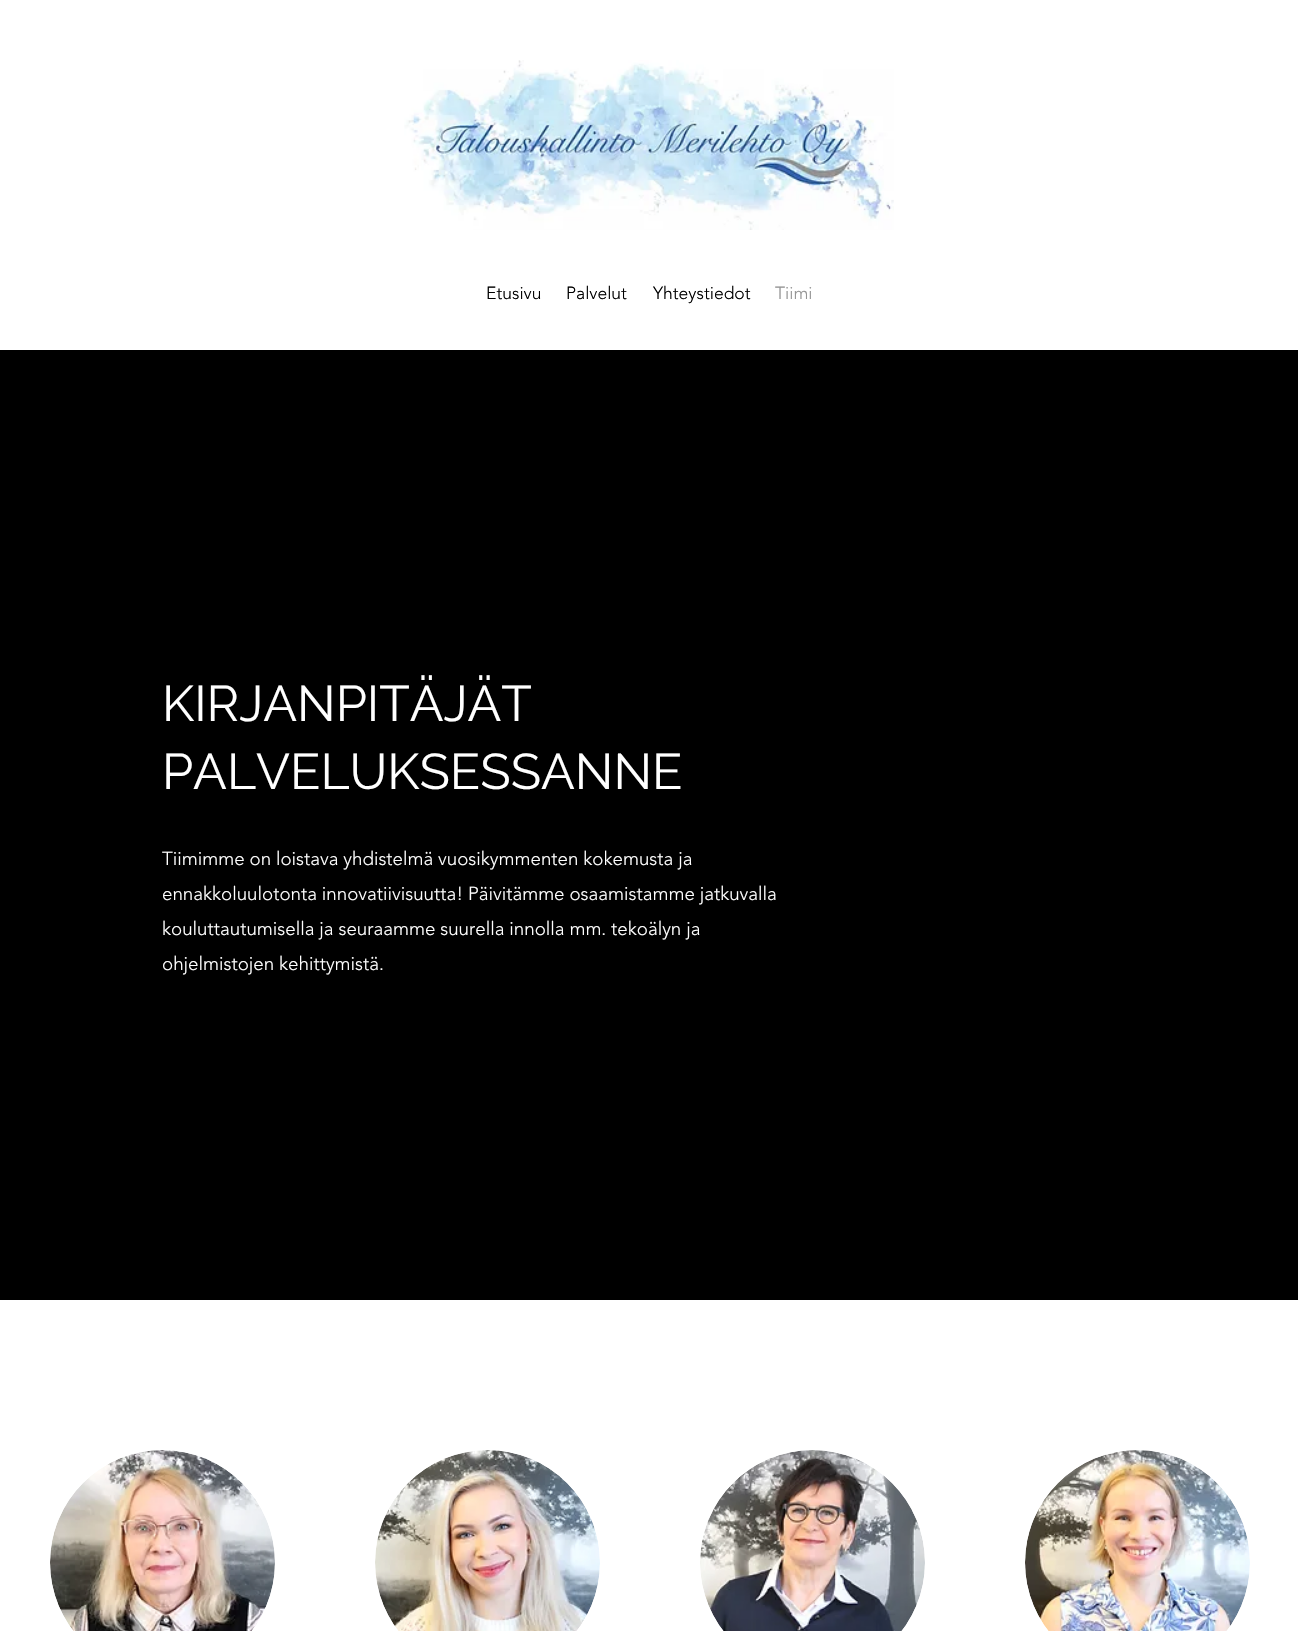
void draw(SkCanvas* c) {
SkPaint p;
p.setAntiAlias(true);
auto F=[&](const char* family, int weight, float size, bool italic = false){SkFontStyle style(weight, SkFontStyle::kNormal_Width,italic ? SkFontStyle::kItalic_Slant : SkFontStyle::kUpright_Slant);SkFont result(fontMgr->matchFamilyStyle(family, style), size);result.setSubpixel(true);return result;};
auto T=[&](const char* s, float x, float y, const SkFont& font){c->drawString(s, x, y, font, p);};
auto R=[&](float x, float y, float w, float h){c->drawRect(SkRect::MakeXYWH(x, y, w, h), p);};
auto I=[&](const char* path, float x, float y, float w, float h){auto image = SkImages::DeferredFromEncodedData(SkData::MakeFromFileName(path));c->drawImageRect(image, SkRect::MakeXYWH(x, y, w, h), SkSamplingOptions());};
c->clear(0xffffffff);
I("1.png",404,60,490,170);
auto f1 = F("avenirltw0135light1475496",300,17.5);
p.setColor(0xff000000);
T("Etusivu",486,299,f1);
T("Palvelut",566,299,f1);
T("Yhteystiedot",653,299,f1);
p.setColor(0xff949494);
T("Tiimi",775,299,f1);
p.setColor(0xff000000);
R(0,350,1298,950);
auto f2 = F("Raleway",400,50);
p.setColor(0xffffffff);
T("KIRJANPITÄJÄT",162,721,f2);
T("PALVELUKSESSANNE",162,789,f2);
auto f3 = F("avenirltw0135light1475496",300,18.75);
T("Tiimimme on loistava yhdistelmä vuosikymmenten kokemusta ja",162,865,f3);
T("ennakkoluulotonta innovatiivisuutta! Päivitämme osaamistamme jatkuvalla",162,900,f3);
T("kouluttautumisella ja seuraamme suurella innolla mm. tekoälyn ja",162,935,f3);
T("ohjelmistojen kehittymistä.",162,970,f3);
I("2.png",50,1450,225,181);
I("3.png",375,1450,225,181);
I("4.png",700,1450,225,181);
I("5.png",1025,1450,225,181);
}
